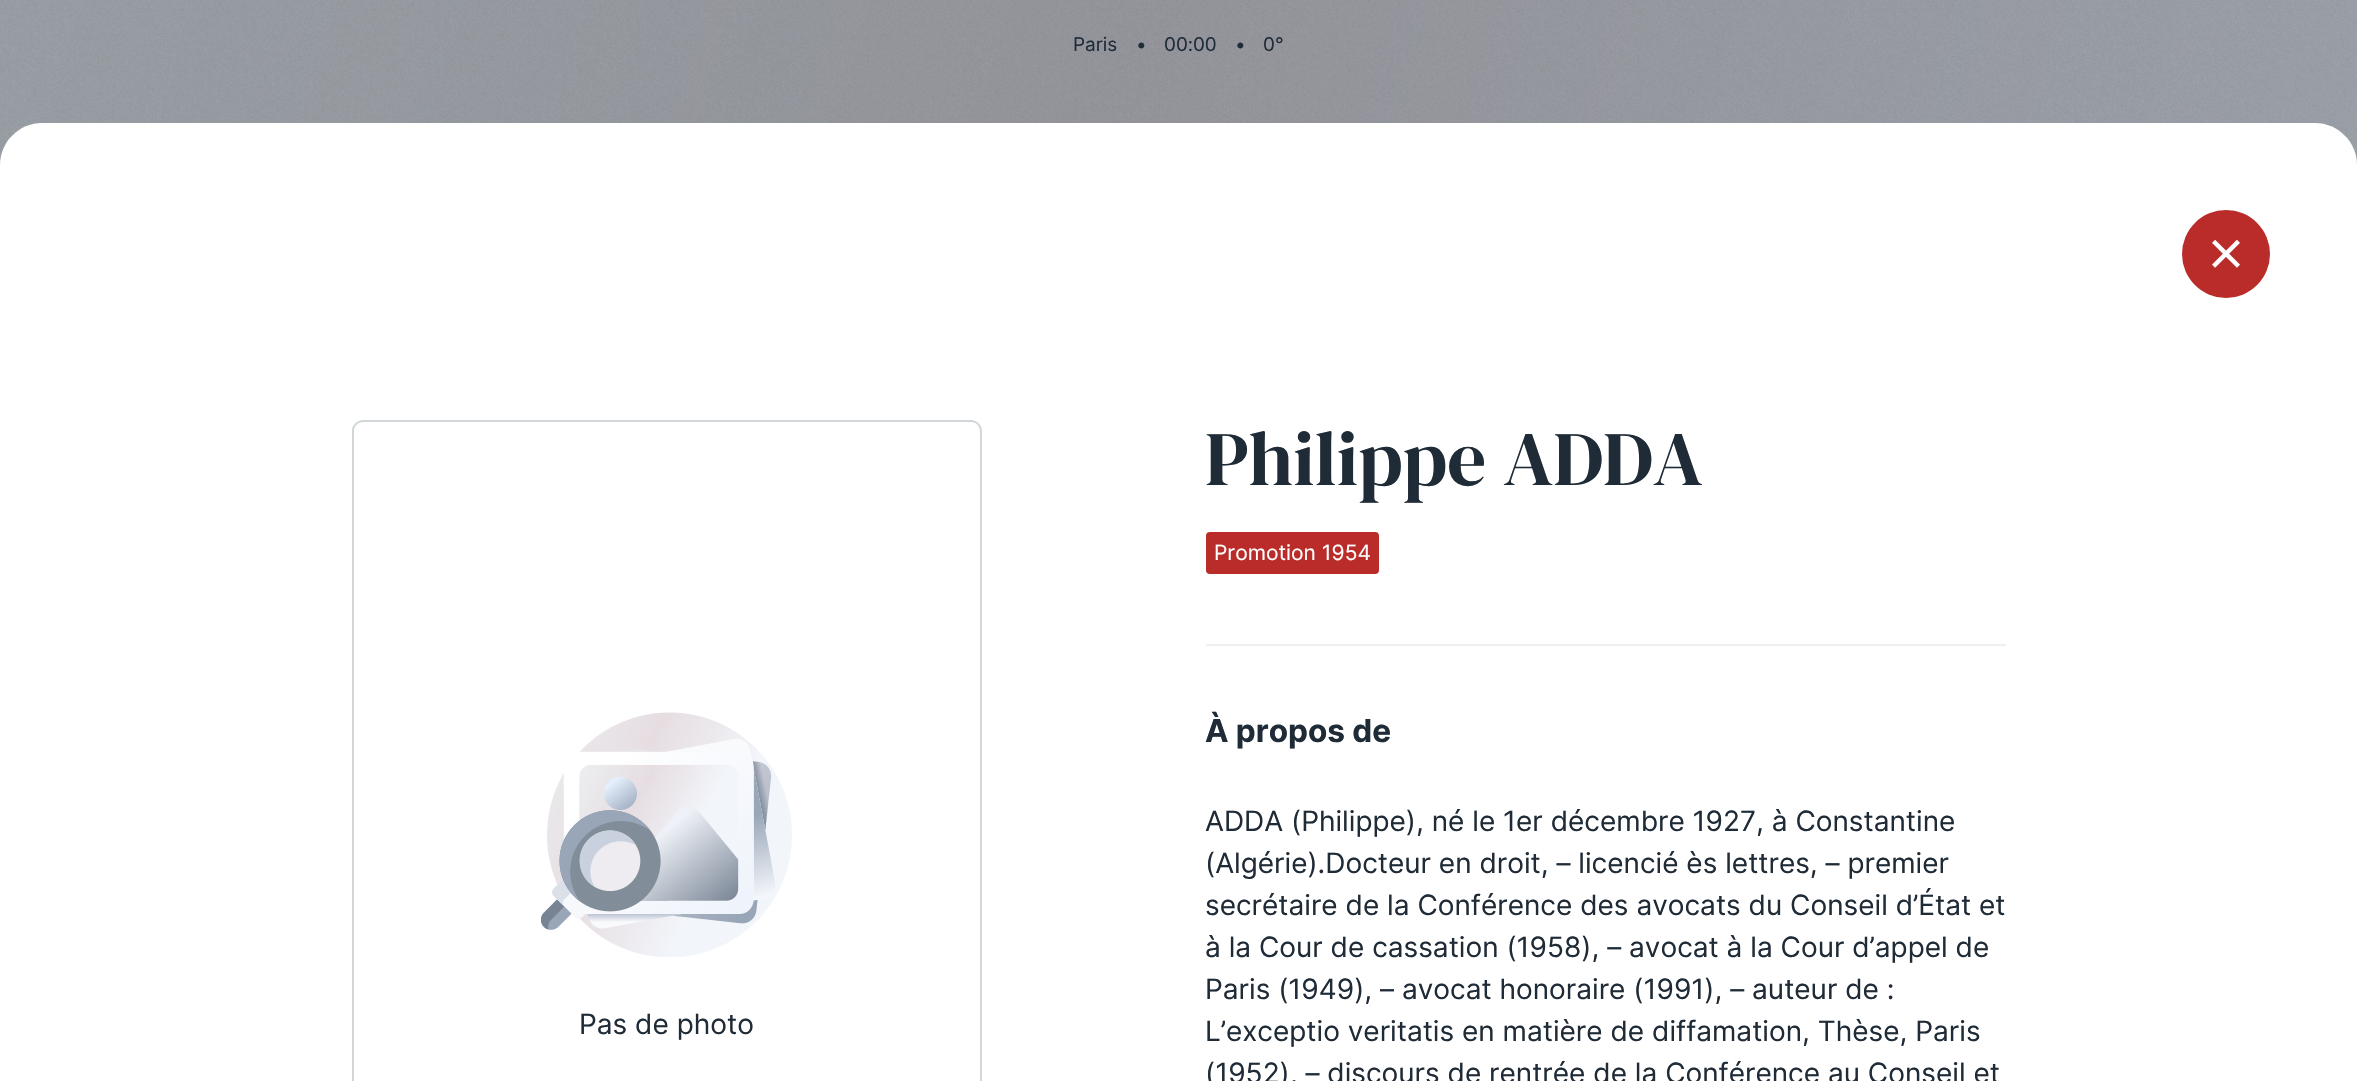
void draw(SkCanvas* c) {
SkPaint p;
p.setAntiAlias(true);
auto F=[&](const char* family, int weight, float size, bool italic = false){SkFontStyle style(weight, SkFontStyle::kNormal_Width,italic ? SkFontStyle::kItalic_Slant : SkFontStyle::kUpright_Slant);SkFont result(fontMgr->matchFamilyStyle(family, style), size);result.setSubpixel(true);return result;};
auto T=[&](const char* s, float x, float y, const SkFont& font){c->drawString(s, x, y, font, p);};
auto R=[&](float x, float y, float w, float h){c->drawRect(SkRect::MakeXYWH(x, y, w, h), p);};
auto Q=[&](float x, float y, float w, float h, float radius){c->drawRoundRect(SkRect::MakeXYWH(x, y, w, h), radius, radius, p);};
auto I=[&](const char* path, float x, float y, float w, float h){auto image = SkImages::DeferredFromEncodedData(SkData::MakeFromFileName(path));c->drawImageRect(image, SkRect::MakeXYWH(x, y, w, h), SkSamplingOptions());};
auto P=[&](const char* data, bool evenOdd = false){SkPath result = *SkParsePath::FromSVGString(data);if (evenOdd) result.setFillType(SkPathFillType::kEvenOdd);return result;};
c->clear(0xffffffff);
{
const SkColor colors[] = {0xff9ea4ac,0xff96969d,0xff9aa0a6};
const float stops[] = {.01,.57,.99};
const SkPoint ends[] = {{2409,907}, {-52,174}};
p.setShader(SkGradientShader::MakeLinear(ends, colors, stops, 3, SkTileMode::kClamp));
p.setAlpha(255);
}
R(0,0,2357,165);
I("1.png",0,0,2357,165);
auto f1 = F("Inter",400,19);
p.setShader(nullptr);
p.setColor(0xff1f2b36);
T("Paris",1073,51,f1);
T("•",1136,51,f1);
T("00:00",1164,51,f1);
T("•",1235,51,f1);
T("0°",1263,51,f1);
p.setColor(0xffffffff);
c->drawPath(P("M42 123h2273c23 0 42 19 42 42v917h-2357v-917c0-23 19-42 42-42z"),p);
p.setColor(0xffb92c2a);
c->drawCircle(2226,254,44,p);
I("2.png",2212,239,28,29);
p.setColor(0xffd0d6d9);
c->drawPath(P("M363 420c-6 0-11 5-11 11v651h2v-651c0-5 4-9 9-9h608c5 0 9 4 9 9v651h2v-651c0-6-5-11-11-11z"),p);
I("3.png",541,712,251,245);
auto f2 = F("Inter",400,28);
p.setColor(0xff1f2b36);
T("Pas de photo",579,1034,f2);
auto f3 = F("DM Serif Display",400,77);
T("Philippe ADDA",1205,485,f3);
p.setColor(0xffb92c2a);
Q(1206,532,173,42,4);
auto f4 = F("Inter",400,21);
p.setColor(0xffffffff);
T("Promotion 1954",1214,560,f4);
p.setColor(0xffeff0f1);
R(1206,644,800,2);
auto f5 = F("Inter",700,31.5);
p.setColor(0xff1f2b36);
T("À propos de",1205,742,f5);
T("ADDA (Philippe), né le 1er décembre 1927, à Constantine",1205,831,f2);
T("(Algérie).Docteur en droit, – licencié ès lettres, – premier",1205,873,f2);
T("secrétaire de la Conférence des avocats du Conseil d’État et",1205,915,f2);
T("à la Cour de cassation (1958), – avocat à la Cour d’appel de",1205,957,f2);
T("Paris (1949), – avocat honoraire (1991), – auteur de :",1205,999,f2);
T("L’exceptio veritatis en matière de diffamation, Thèse, Paris",1205,1041,f2);
T("(1952), – discours de rentrée de la Conférence au Conseil et",1205,1083,f2);
}
